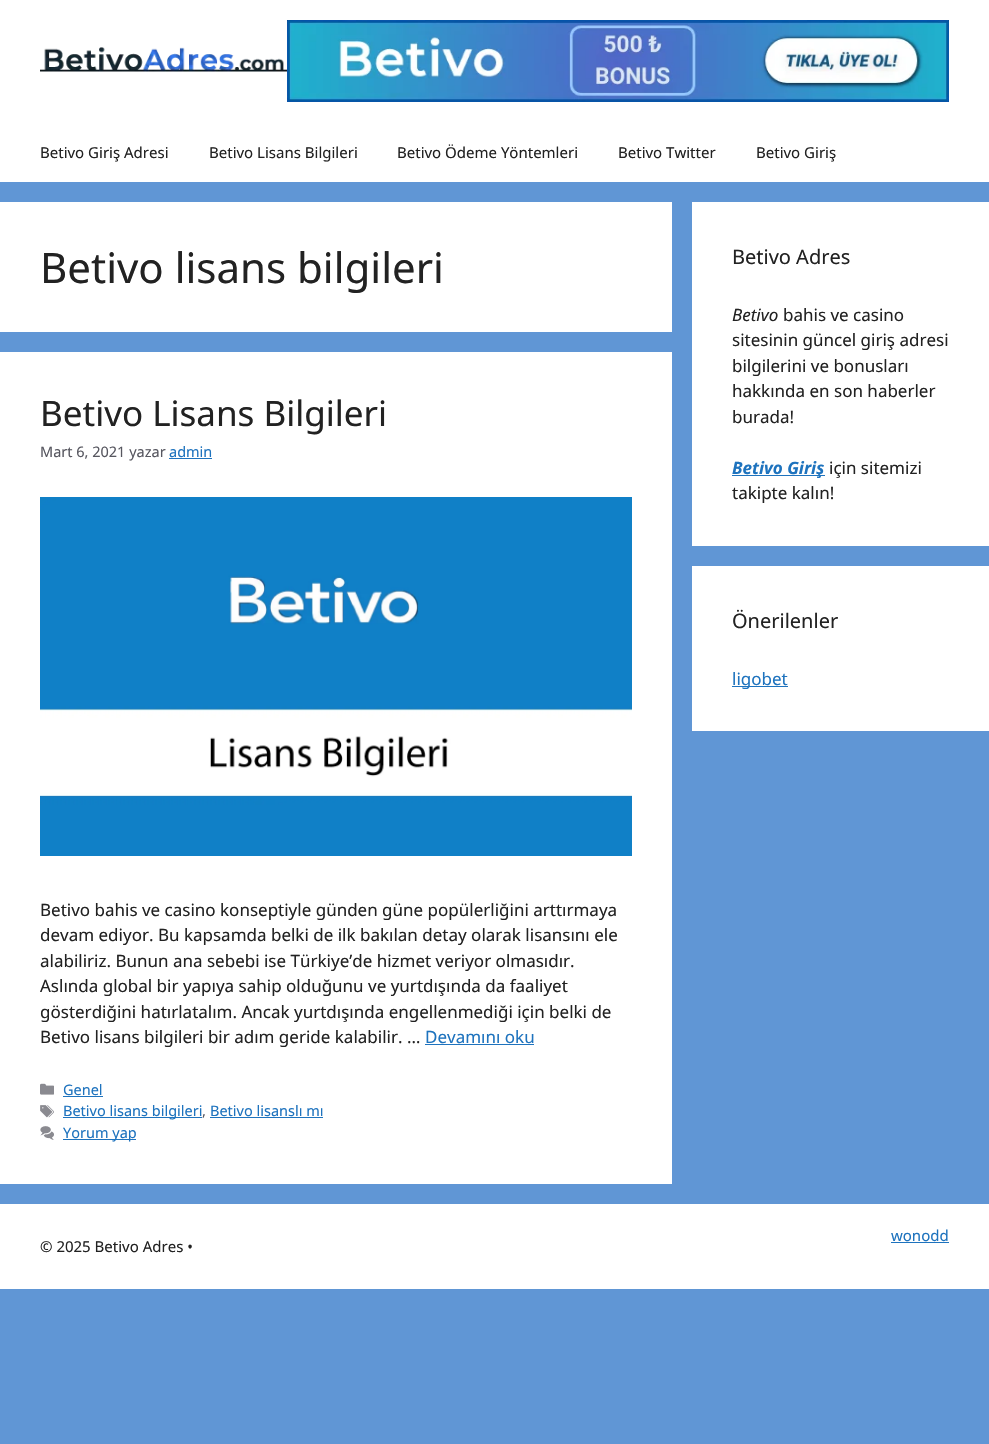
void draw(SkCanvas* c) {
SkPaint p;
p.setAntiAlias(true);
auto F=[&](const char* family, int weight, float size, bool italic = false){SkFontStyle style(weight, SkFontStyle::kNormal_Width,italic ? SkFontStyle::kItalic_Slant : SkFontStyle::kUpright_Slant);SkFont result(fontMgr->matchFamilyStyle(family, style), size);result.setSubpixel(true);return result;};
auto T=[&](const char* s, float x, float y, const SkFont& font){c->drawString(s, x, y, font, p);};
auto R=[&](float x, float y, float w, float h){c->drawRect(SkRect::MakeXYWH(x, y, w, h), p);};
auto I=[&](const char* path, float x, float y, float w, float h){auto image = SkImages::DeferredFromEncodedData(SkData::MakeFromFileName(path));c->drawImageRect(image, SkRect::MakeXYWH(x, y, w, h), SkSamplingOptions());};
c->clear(0xff6096d5);
p.setColor(0xffffffff);
R(0,0,989,182);
I("1.png",40,47,247,25);
I("2.png",287,20,662,82);
auto f1 = F("Noto Sans",400,15);
p.setColor(0xff222222);
T("Betivo Giriş Adresi",40,158,f1);
T("Betivo Lisans Bilgileri",209,158,f1);
T("Betivo Ödeme Yöntemleri",397,158,f1);
T("Betivo Twitter",618,158,f1);
T("Betivo Giriş",756,158,f1);
p.setColor(0xffffffff);
R(0,202,672,130);
auto f2 = F("Noto Sans",400,42);
p.setColor(0xff222222);
T("Betivo lisans bilgileri",40,283,f2);
p.setColor(0xffffffff);
R(0,352,672,832);
auto f3 = F("Noto Sans",400,35);
p.setColor(0xff222222);
T("Betivo Lisans Bilgileri",40,426,f3);
auto f4 = F("Noto Sans",400,14.5);
p.setColor(0xff575760);
T("Mart 6, 2021 yazar",40,457,f4);
p.setColor(0xff1e73be);
T("admin",169,457,f4);
R(169,458,43,1);
I("3.png",40,497,592,359);
auto f5 = F("Noto Sans",400,17);
p.setColor(0xff222222);
T("Betivo bahis ve casino konseptiyle günden güne popülerliğini arttırmaya",40,916,f5);
T("devam ediyor. Bu kapsamda belki de ilk bakılan detay olarak lisansını ele",40,941,f5);
T("alabiliriz. Bunun ana sebebi ise Türkiye’de hizmet veriyor olmasıdır.",40,967,f5);
T("Aslında global bir yapıya sahip olduğunu ve yurtdışında da faaliyet",40,992,f5);
T("gösterdiğini hatırlatalım. Ancak yurtdışında engellenmediği için belki de",40,1018,f5);
T("Betivo lisans bilgileri bir adım geride kalabilir. …",40,1043,f5);
p.setColor(0xff1e73be);
T("Devamını oku",425,1043,f5);
R(425,1044,109,1);
I("4.png",40,1083,14,12);
T("Genel",63,1095,f4);
R(63,1096,40,1);
I("5.png",40,1105,14,13);
R(63,1117,139,1);
T("Betivo lisans bilgileri",63,1116,f4);
p.setColor(0xff575760);
T(",",202,1116,f4);
p.setColor(0xff1e73be);
T("Betivo lisanslı mı",210,1116,f4);
R(210,1117,113,1);
I("6.png",40,1126,14,14);
R(63,1139,73,1);
T("Yorum yap",63,1138,f4);
p.setColor(0xffffffff);
R(692,202,297,344);
auto f6 = F("Noto Sans",400,20);
p.setColor(0xff222222);
T("Betivo Adres",732,264,f6);
auto f7 = F("Noto Sans",400,17,true);
T("Betivo",732,321,f7);
T("bahis ve casino",783,321,f5);
T("sitesinin güncel giriş adresi",732,346,f5);
T("bilgilerini ve bonusları",732,372,f5);
T("hakkında en son haberler",732,397,f5);
T("burada!",732,423,f5);
p.setColor(0xff1e73be);
R(732,475,93,1);
auto f8 = F("Noto Sans",700,17,true);
T("Betivo Giriş",732,474,f8);
p.setColor(0xff222222);
T("için sitemizi",829,474,f5);
T("takipte kalın!",732,499,f5);
p.setColor(0xffffffff);
R(692,566,297,165);
p.setColor(0xff222222);
T("Önerilenler",732,628,f6);
p.setColor(0xff1e73be);
R(732,686,56,1);
T("ligobet",732,685,f5);
p.setColor(0xffffffff);
R(0,1204,989,85);
p.setColor(0xff1e73be);
T("wonodd",891,1241,f1);
R(891,1242,58,1);
p.setColor(0xff222222);
T("© 2025 Betivo Adres •",40,1252,f1);
}
